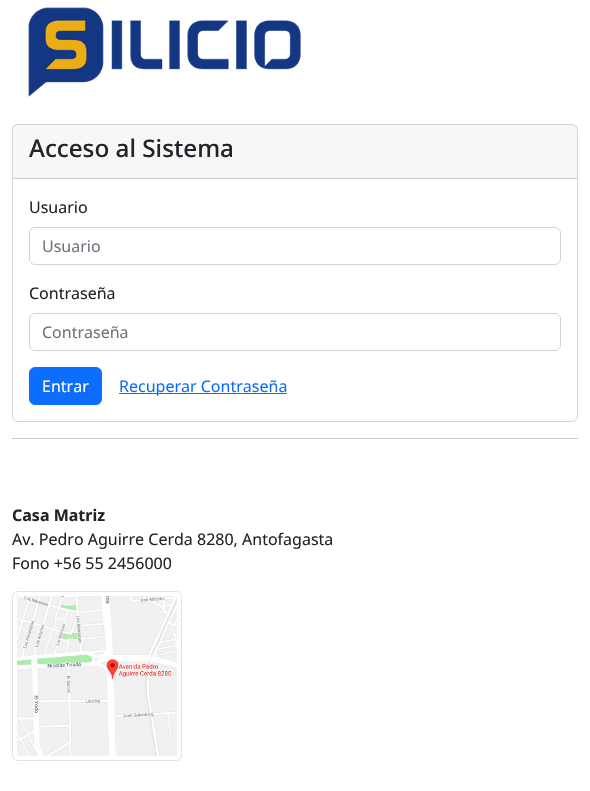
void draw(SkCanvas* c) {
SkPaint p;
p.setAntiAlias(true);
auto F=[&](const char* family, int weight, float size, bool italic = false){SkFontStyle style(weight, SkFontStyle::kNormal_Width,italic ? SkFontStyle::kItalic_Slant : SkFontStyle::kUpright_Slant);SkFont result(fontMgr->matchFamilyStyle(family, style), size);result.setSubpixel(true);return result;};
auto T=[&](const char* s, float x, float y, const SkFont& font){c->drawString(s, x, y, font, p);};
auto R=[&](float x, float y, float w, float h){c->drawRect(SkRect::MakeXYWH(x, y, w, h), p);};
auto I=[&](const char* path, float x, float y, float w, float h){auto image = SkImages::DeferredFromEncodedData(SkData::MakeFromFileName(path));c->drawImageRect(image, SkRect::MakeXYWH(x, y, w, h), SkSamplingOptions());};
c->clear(0xffffffff);
I("1.png",28,7,273,90);
p.setStroke(true);
p.setStrokeWidth(1);
p.setColor(0xffd2d2d2);
c->drawRoundRect(SkRect::MakeXYWH(12.5,124.5,565,297),5.5,5.5,p);
p.setStroke(false);
p.setColor(0x08000000);
R(13,125,564,53);
p.setColor(0xffcccccc);
R(13,178,564,1);
auto f1 = F("Noto Sans",500,24.25);
p.setColor(0xff212529);
T("Acceso al Sistema",29,157,f1);
auto f2 = F("Noto Sans",400,16);
T("Usuario",29,213,f2);
p.setStroke(true);
p.setColor(0xffced4da);
c->drawRoundRect(SkRect::MakeXYWH(29.5,227.5,531,37),5.5,5.5,p);
p.setStroke(false);
p.setColor(0xff6c757d);
T("Usuario",42,252,f2);
p.setColor(0xff212529);
T("Contraseña",29,299,f2);
p.setStroke(true);
p.setColor(0xffced4da);
c->drawRoundRect(SkRect::MakeXYWH(29.5,313.5,531,37),5.5,5.5,p);
p.setStroke(false);
p.setColor(0xff6c757d);
T("Contraseña",42,338,f2);
p.setColor(0xff0d6efd);
c->drawRoundRect(SkRect::MakeXYWH(29.5,367.5,72,37),5.5,5.5,p);
p.setStroke(true);
c->drawRoundRect(SkRect::MakeXYWH(29.5,367.5,72,37),5.5,5.5,p);
p.setStroke(false);
p.setColor(0xffffffff);
T("Entrar",42,392,f2);
p.setColor(0xff0d6efd);
R(119,393,168,1);
T("Recuperar Contraseña",119,392,f2);
p.setColor(0xffc8c9ca);
R(12,438,566,1);
auto f3 = F("Noto Sans",700,16);
p.setColor(0xff212529);
T("Casa Matriz",12,521,f3);
T("Av. Pedro Aguirre Cerda 8280, Antofagasta",12,545,f2);
T("Fono +56 55 2456000",12,569,f2);
p.setStroke(true);
p.setColor(0xffdee2e6);
c->drawRoundRect(SkRect::MakeXYWH(12.5,591.5,169,169),5.5,5.5,p);
I("2.png",17,596,160,160);
}
